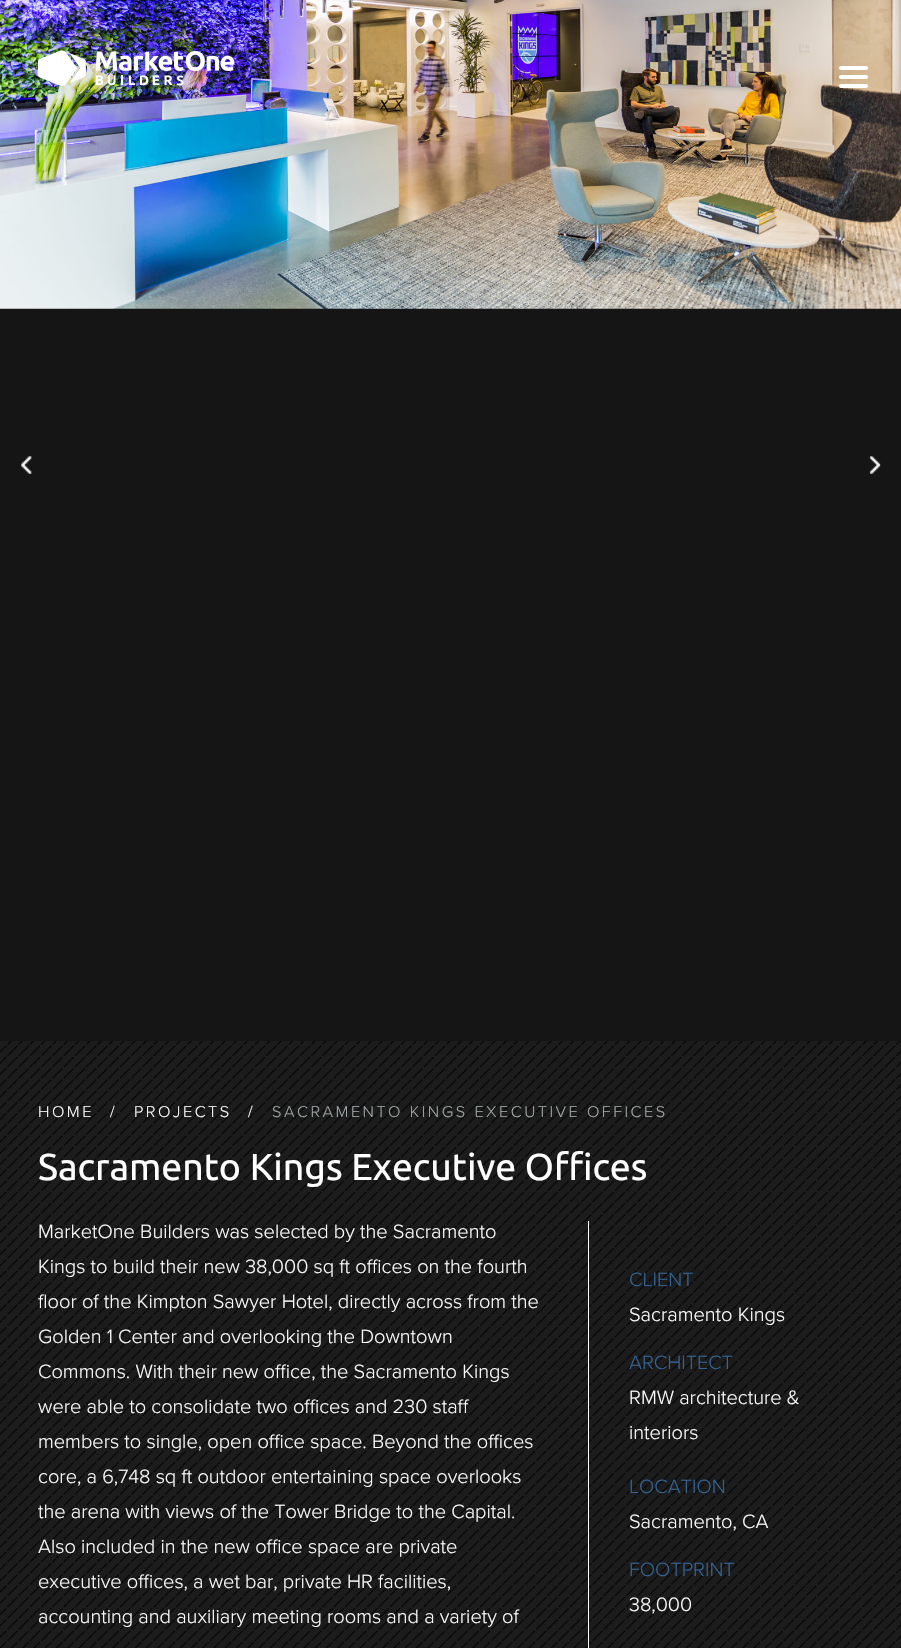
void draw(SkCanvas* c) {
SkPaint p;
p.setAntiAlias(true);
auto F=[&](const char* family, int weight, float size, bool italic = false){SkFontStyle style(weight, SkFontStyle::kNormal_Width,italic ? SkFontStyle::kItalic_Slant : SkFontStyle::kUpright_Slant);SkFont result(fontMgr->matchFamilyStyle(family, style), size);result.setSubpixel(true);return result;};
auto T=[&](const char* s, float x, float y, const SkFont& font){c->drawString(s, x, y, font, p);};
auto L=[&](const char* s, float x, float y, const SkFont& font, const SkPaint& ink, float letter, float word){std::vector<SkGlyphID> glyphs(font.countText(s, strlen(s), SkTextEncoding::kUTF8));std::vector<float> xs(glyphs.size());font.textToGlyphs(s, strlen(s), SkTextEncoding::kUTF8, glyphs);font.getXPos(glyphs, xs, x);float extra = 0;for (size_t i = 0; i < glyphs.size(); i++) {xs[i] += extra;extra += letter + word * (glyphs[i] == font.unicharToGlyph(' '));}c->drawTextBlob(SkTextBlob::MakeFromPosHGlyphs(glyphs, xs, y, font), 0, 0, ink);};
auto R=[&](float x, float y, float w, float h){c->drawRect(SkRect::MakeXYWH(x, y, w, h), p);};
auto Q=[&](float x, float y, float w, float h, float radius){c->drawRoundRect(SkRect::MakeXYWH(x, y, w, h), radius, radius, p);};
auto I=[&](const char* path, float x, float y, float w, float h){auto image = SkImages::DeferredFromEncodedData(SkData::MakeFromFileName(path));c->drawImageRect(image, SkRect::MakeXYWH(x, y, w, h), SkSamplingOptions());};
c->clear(0xffffffff);
I("1.png",0,1041,901,607);
p.setColor(0xff151515);
R(0,308,901,733);
I("3.png",0,0,901,309);
I("2.png",38,50,197,36);
p.setColor(0xffffffff);
Q(839,66,29,4,2);
Q(839,75,29,4,2);
Q(839,84,29,4,2);
I("4.png",21,456,11,18);
I("5.png",869,456,12,18);
auto f1 = F("Proxima Nova",300,16.25);
L("HOME",38,1117,f1,p,2.5,0);
L("/",110,1117,f1,p,2.5,0);
L("PROJECTS",134,1117,f1,p,2.5,0);
L("/",248,1117,f1,p,2.5,0);
p.setColor(0xffa5abad);
L("SACRAMENTO KINGS EXECUTIVE OFFICES",272,1117,f1,p,2.5,0);
auto f2 = F("Ubuntu",400,37.5);
p.setColor(0xffffffff);
T("Sacramento Kings Executive Offices",38,1180,f2);
auto f3 = F("Proxima Nova",300,20);
T("MarketOne Builders was selected by the Sacramento",38,1238,f3);
T("Kings to build their new 38,000 sq ft offices on the fourth",38,1273,f3);
T("floor of the Kimpton Sawyer Hotel, directly across from the",38,1308,f3);
T("Golden 1 Center and overlooking the Downtown",38,1343,f3);
T("Commons. With their new office, the Sacramento Kings",38,1378,f3);
T("were able to consolidate two offices and 230 staff",38,1413,f3);
T("members to single, open office space. Beyond the offices",38,1448,f3);
T("core, a 6,748 sq ft outdoor entertaining space overlooks",38,1483,f3);
T("the arena with views of the Tower Bridge to the Capital.",38,1518,f3);
T("Also included in the new office space are private",38,1553,f3);
T("executive offices, a wet bar, private HR facilities,",38,1588,f3);
T("accounting and auxiliary meeting rooms and a variety of",38,1623,f3);
R(588,1221,1,427);
p.setColor(0xff346496);
T("CLIENT",629,1286,f3);
p.setColor(0xffffffff);
T("Sacramento Kings",629,1321,f3);
p.setColor(0xff346496);
T("ARCHITECT",629,1369,f3);
p.setColor(0xffffffff);
T("RMW architecture &",629,1404,f3);
T("interiors",629,1439,f3);
p.setColor(0xff346496);
T("LOCATION",629,1493,f3);
p.setColor(0xffffffff);
T("Sacramento, CA",629,1528,f3);
p.setColor(0xff346496);
T("FOOTPRINT",629,1576,f3);
p.setColor(0xffffffff);
T("38,000",629,1611,f3);
}
